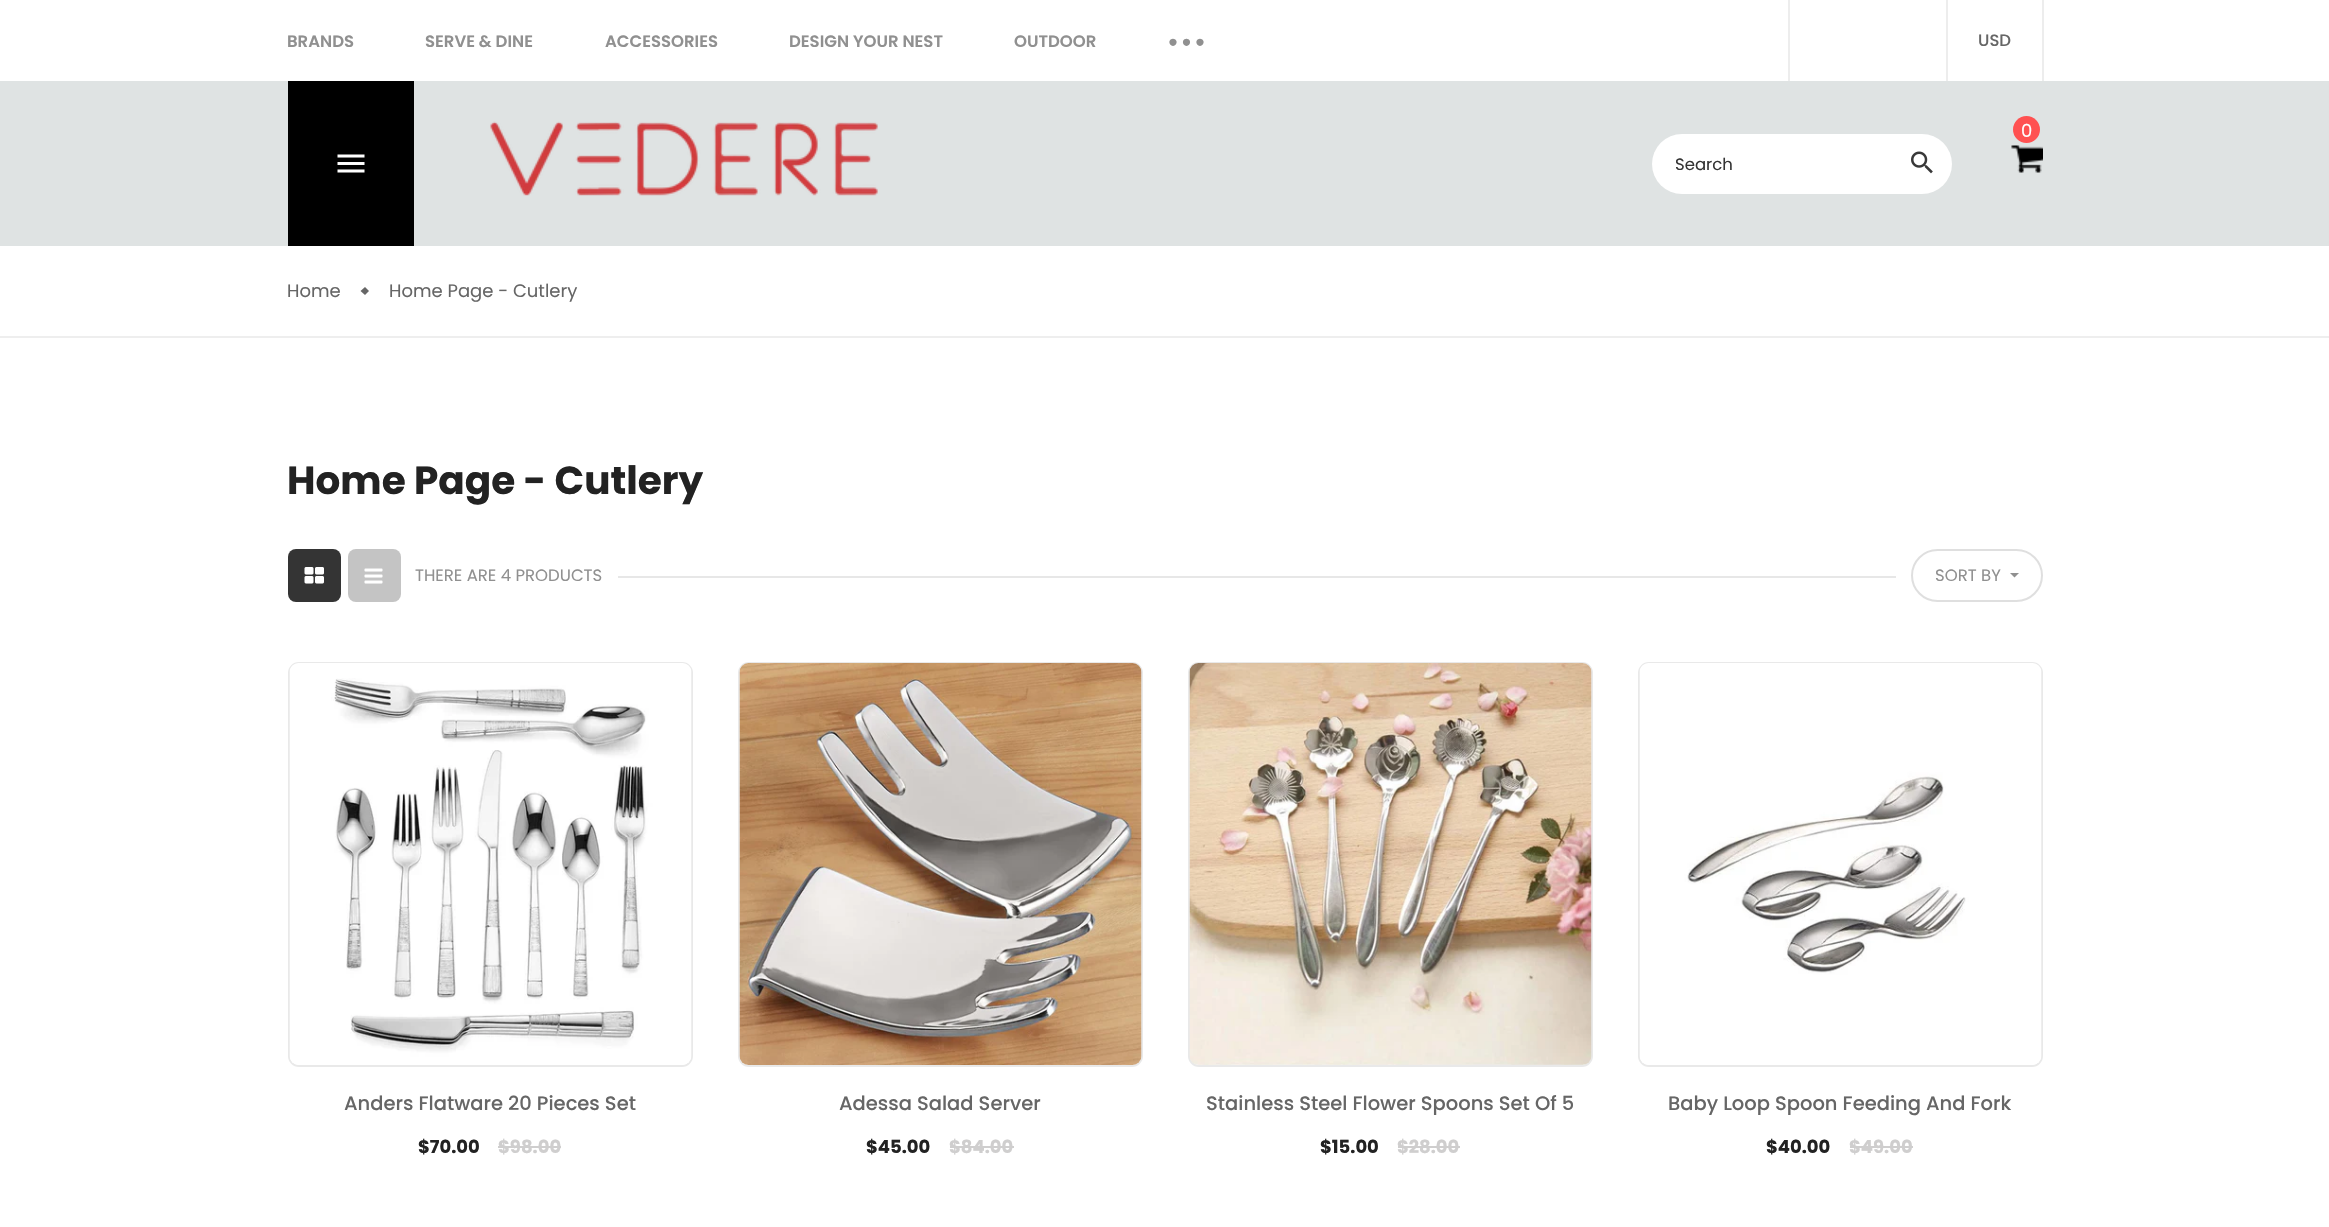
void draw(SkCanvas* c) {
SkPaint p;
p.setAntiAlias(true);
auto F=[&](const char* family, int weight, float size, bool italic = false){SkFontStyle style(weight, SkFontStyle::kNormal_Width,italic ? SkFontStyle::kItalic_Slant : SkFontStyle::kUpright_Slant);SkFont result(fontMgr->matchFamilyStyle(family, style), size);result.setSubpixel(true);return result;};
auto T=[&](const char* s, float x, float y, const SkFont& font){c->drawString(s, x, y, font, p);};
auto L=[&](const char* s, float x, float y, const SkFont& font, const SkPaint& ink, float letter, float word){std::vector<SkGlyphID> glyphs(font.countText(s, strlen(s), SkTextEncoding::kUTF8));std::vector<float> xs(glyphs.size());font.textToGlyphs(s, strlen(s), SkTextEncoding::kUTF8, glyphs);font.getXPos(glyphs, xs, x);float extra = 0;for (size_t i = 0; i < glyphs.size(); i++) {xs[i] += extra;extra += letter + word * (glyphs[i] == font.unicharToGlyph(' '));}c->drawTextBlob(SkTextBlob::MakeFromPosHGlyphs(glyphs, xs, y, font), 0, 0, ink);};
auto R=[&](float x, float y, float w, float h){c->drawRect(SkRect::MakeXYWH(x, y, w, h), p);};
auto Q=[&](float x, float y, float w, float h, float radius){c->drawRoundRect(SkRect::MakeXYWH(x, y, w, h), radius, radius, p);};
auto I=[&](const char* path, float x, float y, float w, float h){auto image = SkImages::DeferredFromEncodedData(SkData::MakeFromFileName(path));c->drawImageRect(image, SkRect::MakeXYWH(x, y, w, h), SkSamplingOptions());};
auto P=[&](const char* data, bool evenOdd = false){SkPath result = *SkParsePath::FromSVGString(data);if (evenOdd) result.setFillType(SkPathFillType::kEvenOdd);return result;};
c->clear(0xffffffff);
auto f1 = F("Poppins",600,16.5);
p.setColor(0xff909090);
T("BRANDS",287,47,f1);
T("SERVE & DINE",425,47,f1);
T("ACCESSORIES",605,47,f1);
T("DESIGN YOUR NEST",789,47,f1);
T("OUTDOOR",1014,47,f1);
auto f2 = F("Liberation Sans",700,16.5);
L("● ● ●",1168,47,f2,p,0,-1);
p.setColor(0xffededed);
R(1788,0,2,81);
R(2042,0,2,81);
R(1946,0,2,81);
auto f3 = F("Poppins",500,16.5);
p.setColor(0xff666666);
T("USD",1978,46,f3);
p.setColor(0xffdfe3e3);
R(0,81,2329,165);
p.setColor(0xff000000);
R(288,81,126,165);
I("1.png",337,154,28,19);
I("2.png",490,121,388,75);
p.setColor(0xffff5151);
c->drawCircle(2026.5,129.5,13.5,p);
auto f4 = F("Poppins",400,18);
p.setColor(0xffffffff);
T("0",2021,137,f4);
I("3.png",2011,145,32,28);
Q(1652,134,300,60,30);
c->save();
c->clipRect(SkRect::MakeXYWH(1676,152,201,25));
auto f5 = F("Poppins",400,16.5);
p.setColor(0xff343434);
T("Search",1675,170,f5);
c->restore();
I("4.png",1911,151,22,23);
p.setColor(0xffeeeeee);
R(0,336,2329,2);
p.setColor(0xff666666);
T("Home",287,297,f4);
c->drawPath(P("M365 287l4 4l-4 4l-4.5-4z"),p);
T("Home Page - Cutlery",389,297,f4);
auto f6 = F("Poppins",700,39);
p.setColor(0xff222222);
T("Home Page - Cutlery",287,494,f6);
p.setColor(0xff343434);
Q(288,549,53,53,8);
I("5.png",304,567,20,17);
p.setColor(0xffc4c4c4);
Q(348,549,53,53,8);
I("6.png",364,568,19,16);
p.setColor(0xff909090);
T("THERE ARE 4 PRODUCTS",415,581,f5);
p.setColor(0xffe7e7e7);
R(618,576,1278,2);
p.setStroke(true);
p.setStrokeWidth(2);
p.setColor(0xffdfdfdf);
c->drawRoundRect(SkRect::MakeXYWH(1912,550,130,51),25.5,25.5,p);
p.setStroke(false);
p.setColor(0xff909090);
T("SORT BY",1935,581,f5);
c->drawPath(P("M2010 573h9l-4.5 4.5z"),p);
p.setStroke(true);
p.setColor(0xffe9e9e9);
c->drawRoundRect(SkRect::MakeXYWH(289,663,403,403),10,10,p);
I("7.png",289,663,403,402);
auto f7 = F("Poppins",500,19.5);
p.setStroke(false);
p.setColor(0xff666666);
T("Anders Flatware 20 Pieces Set",344,1110,f7);
auto f8 = F("Poppins",700,18);
p.setColor(0xff222222);
T("$70.00",418,1153,f8);
p.setColor(0xffcfcece);
T("$98.00",498,1153,f8);
R(498,1146,63,2);
p.setStroke(true);
p.setColor(0xffe9e9e9);
c->drawRoundRect(SkRect::MakeXYWH(739,663,403,403),10,10,p);
I("8.png",739,663,403,402);
p.setStroke(false);
p.setColor(0xff666666);
T("Adessa Salad Server",839,1110,f7);
p.setColor(0xff222222);
T("$45.00",866,1153,f8);
p.setColor(0xffcfcece);
T("$84.00",949,1153,f8);
R(950,1146,64,2);
p.setStroke(true);
p.setColor(0xffe9e9e9);
c->drawRoundRect(SkRect::MakeXYWH(1189,663,403,403),10,10,p);
I("9.png",1189,663,403,402);
p.setStroke(false);
p.setColor(0xff666666);
T("Stainless Steel Flower Spoons Set Of 5",1206,1110,f7);
p.setColor(0xff222222);
T("$15.00",1320,1153,f8);
p.setColor(0xffcfcece);
T("$28.00",1397,1153,f8);
R(1398,1146,62,2);
p.setStroke(true);
p.setColor(0xffe9e9e9);
c->drawRoundRect(SkRect::MakeXYWH(1639,663,403,403),10,10,p);
I("10.png",1639,663,403,402);
p.setStroke(false);
p.setColor(0xff666666);
T("Baby Loop Spoon Feeding And Fork",1668,1110,f7);
p.setColor(0xff222222);
T("$40.00",1766,1153,f8);
p.setColor(0xffcfcece);
T("$49.00",1849,1153,f8);
R(1850,1146,63,2);
}
